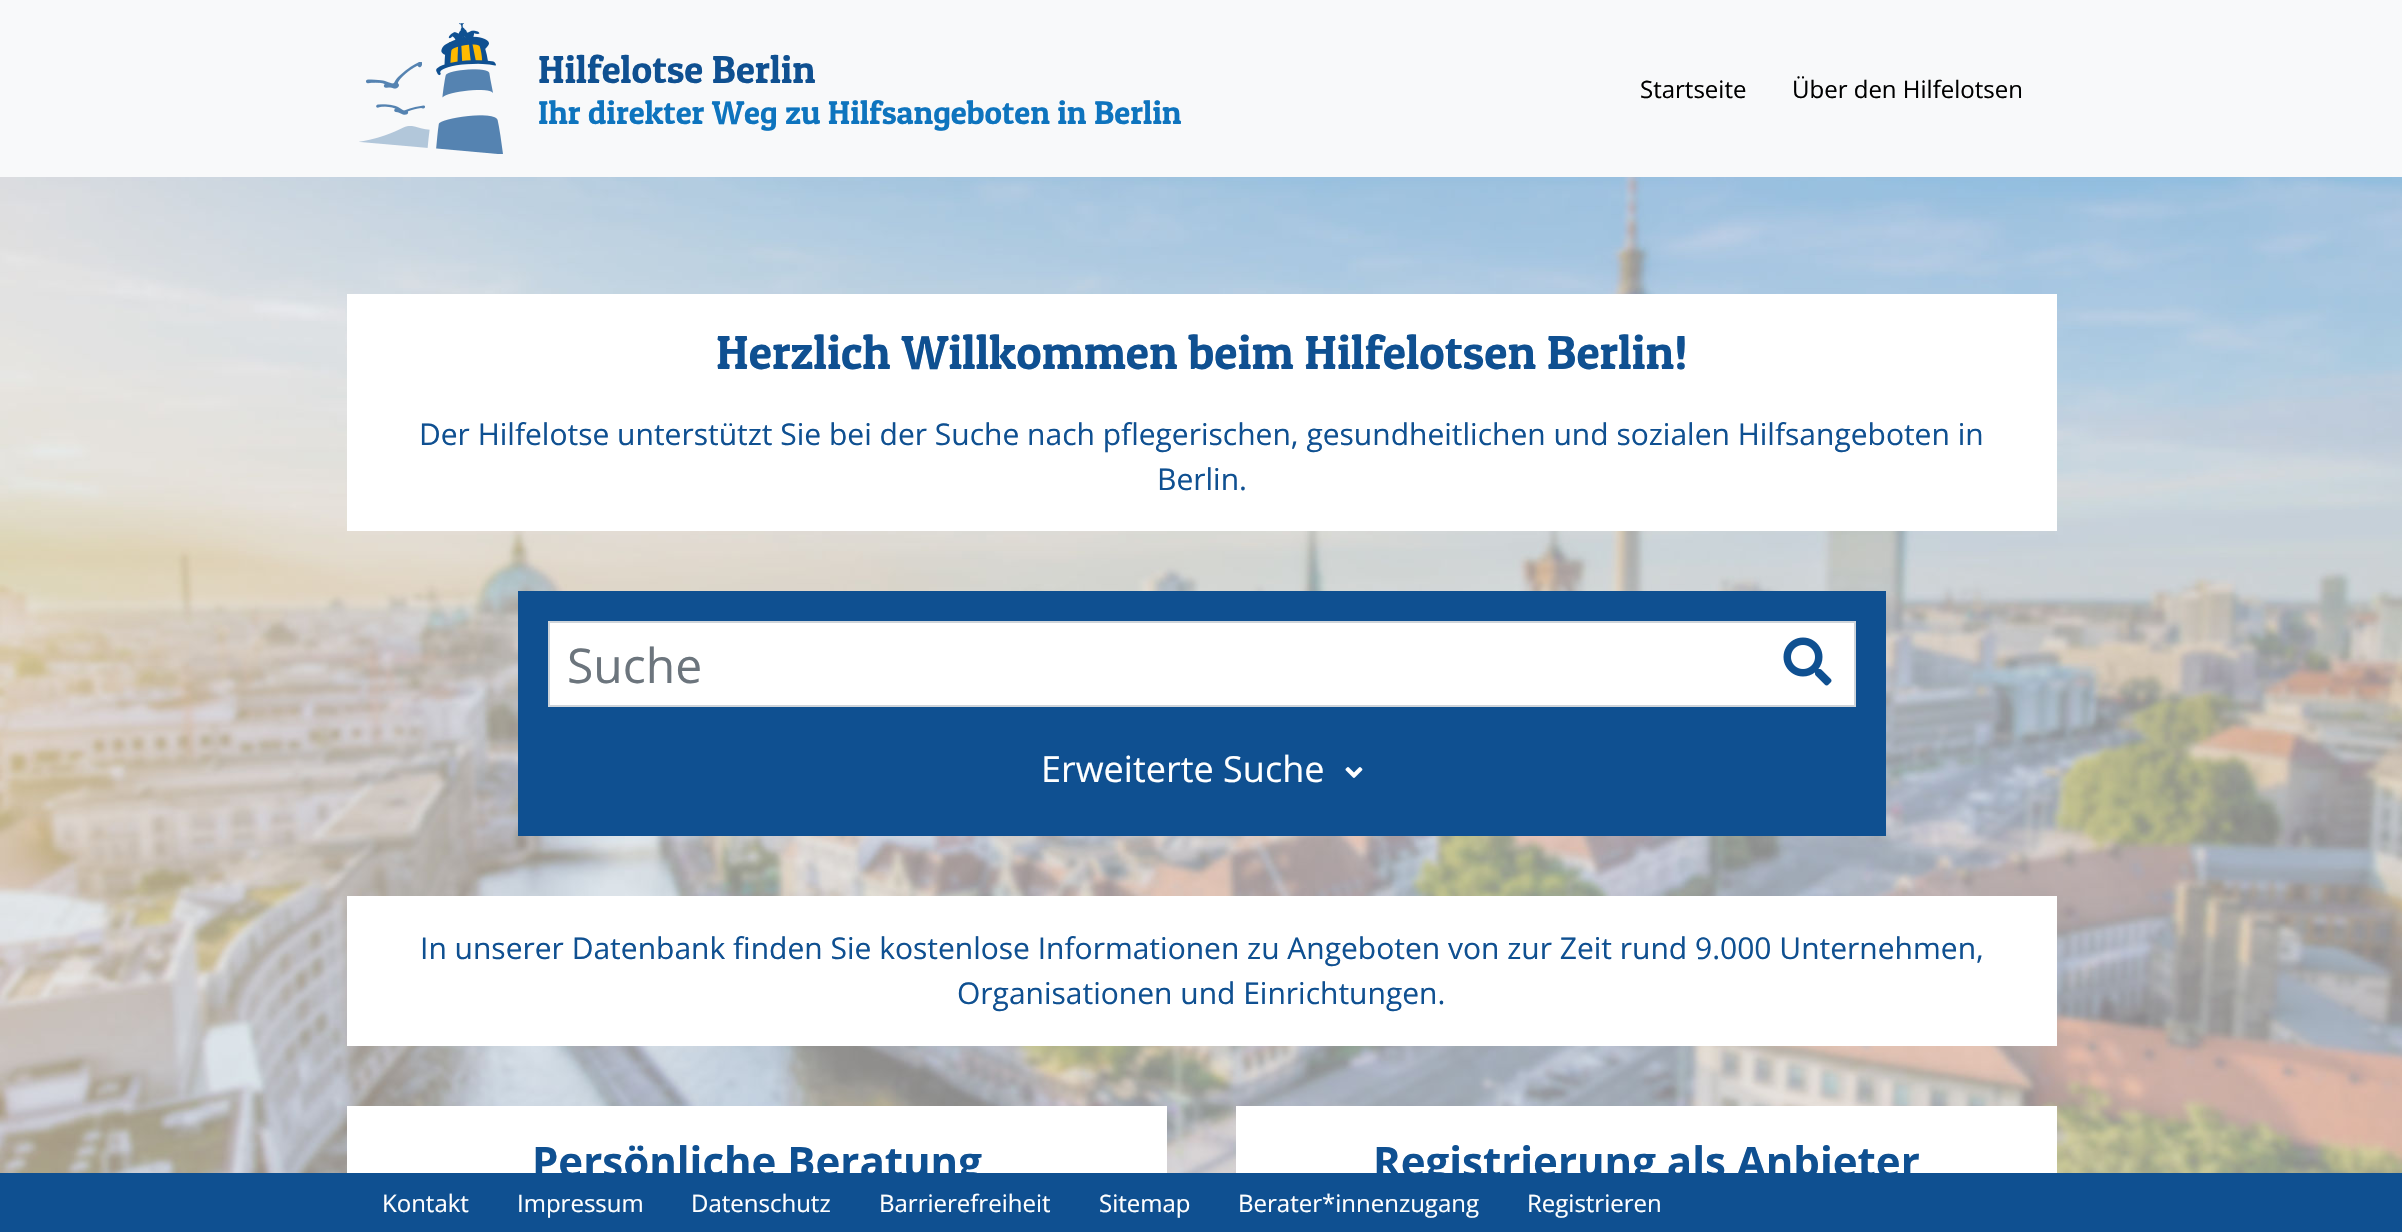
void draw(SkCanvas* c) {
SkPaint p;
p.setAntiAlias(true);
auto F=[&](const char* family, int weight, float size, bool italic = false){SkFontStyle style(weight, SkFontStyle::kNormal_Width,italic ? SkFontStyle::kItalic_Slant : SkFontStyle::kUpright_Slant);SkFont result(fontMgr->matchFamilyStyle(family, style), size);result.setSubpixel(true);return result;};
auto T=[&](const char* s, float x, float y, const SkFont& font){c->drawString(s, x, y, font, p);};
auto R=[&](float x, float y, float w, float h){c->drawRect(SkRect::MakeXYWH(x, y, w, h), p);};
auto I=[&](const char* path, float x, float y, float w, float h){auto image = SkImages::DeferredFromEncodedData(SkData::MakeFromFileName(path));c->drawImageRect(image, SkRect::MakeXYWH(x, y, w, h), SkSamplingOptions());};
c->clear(0xffffffff);
I("1.png",0,177,2402,996);
p.setColor(0xfff8f9fa);
R(0,0,2402,177);
I("2.png",359,23,144,131);
auto f1 = F("Patua One",400,39);
p.setColor(0xff0f5091);
T("Hilfelotse Berlin",538,83,f1);
auto f2 = F("Patua One",400,33);
p.setColor(0xff0e74be);
T("Ihr direkter Weg zu Hilfsangeboten in Berlin",538,124,f2);
auto f3 = F("Open Sans",400,24);
p.setColor(0xff000000);
T("Startseite",1640,98,f3);
T("Über den Hilfelotsen",1792,98,f3);
p.setColor(0xffffffff);
R(347,294,1710,237);
auto f4 = F("Patua One",400,48);
p.setColor(0xff0f5091);
T("Herzlich Willkommen beim Hilfelotsen Berlin!",716,369,f4);
auto f5 = F("Open Sans",400,30);
T("Der Hilfelotse unterstützt Sie bei der Suche nach pflegerischen, gesundheitlichen und sozialen Hilfsangeboten in",419,445,f5);
T("Berlin.",1157,490,f5);
R(518,591,1368,245);
p.setColor(0xffffffff);
c->drawRect(SkRect::MakeXYWH(549,622,1306,84),p);
p.setStroke(true);
p.setStrokeWidth(2);
p.setColor(0xffced4da);
c->drawRect(SkRect::MakeXYWH(549,622,1306,84),p);
auto f6 = F("Open Sans",400,48);
p.setStroke(false);
p.setColor(0xff6c757d);
T("Suche",567,683,f6);
auto f7 = F("Open Sans",400,36);
p.setColor(0xffffffff);
T("Erweiterte Suche",1041,782,f7);
I("3.png",1345,767,18,11);
I("4.png",1783,637,49,49);
R(347,896,1710,150);
p.setColor(0xff0f5091);
T("In unserer Datenbank finden Sie kostenlose Informationen zu Angeboten von zur Zeit rund 9.000 Unternehmen,",420,959,f5);
T("Organisationen und Einrichtungen.",957,1004,f5);
p.setColor(0xffffffff);
R(347,1106,820,67);
auto f8 = F("Open Sans",700,42);
p.setColor(0xff0f5091);
T("Persönliche Beratung",532,1177,f8);
p.setColor(0xffffffff);
R(1236,1106,821,67);
p.setColor(0xff0f5091);
T("Registrierung als Anbieter",1373,1177,f8);
R(0,1173,2402,59);
p.setColor(0xffffffff);
T("Kontakt",382,1212,f3);
T("Impressum",517,1212,f3);
T("Datenschutz",691,1212,f3);
T("Barrierefreiheit",879,1212,f3);
T("Sitemap",1099,1212,f3);
T("Berater*innenzugang",1238,1212,f3);
T("Registrieren",1527,1212,f3);
}
